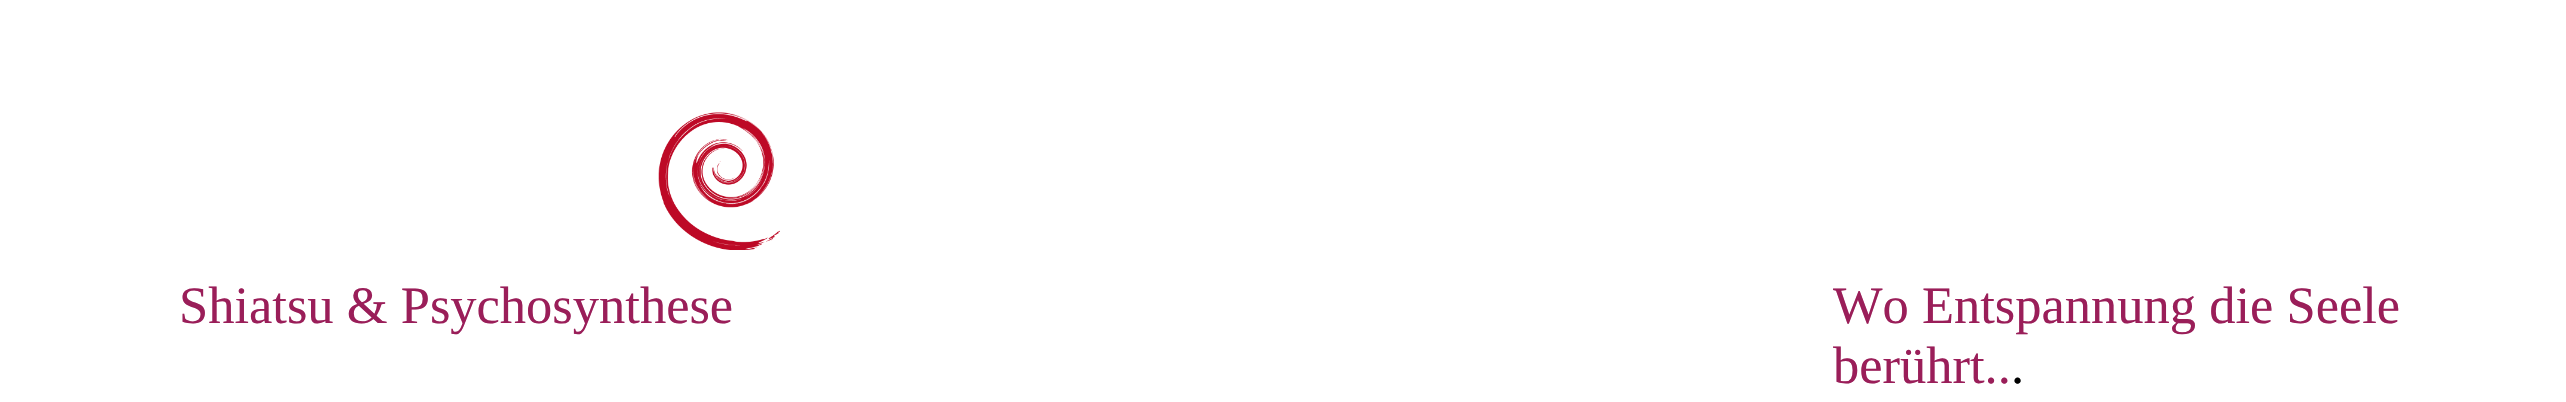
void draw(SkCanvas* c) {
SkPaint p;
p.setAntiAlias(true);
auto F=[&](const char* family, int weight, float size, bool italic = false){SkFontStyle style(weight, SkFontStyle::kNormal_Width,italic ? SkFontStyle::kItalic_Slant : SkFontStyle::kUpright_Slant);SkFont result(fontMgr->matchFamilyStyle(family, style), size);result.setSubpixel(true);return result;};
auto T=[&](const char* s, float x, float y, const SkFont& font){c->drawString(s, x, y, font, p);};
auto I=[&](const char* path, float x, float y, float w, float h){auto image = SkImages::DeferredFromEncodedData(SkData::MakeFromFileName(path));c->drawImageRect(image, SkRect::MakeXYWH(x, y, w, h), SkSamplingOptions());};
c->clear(0xffffffff);
I("1.png",658,112,122,138);
auto f1 = F("Liberation Serif",400,52.5);
p.setColor(0xff9a1e59);
T("Shiatsu & Psychosynthese",179,323,f1);
T("Wo Entspannung die Seele",1833,323,f1);
T("berührt..",1833,383,f1);
p.setColor(0xff000000);
T(".",2011,383,f1);
}
